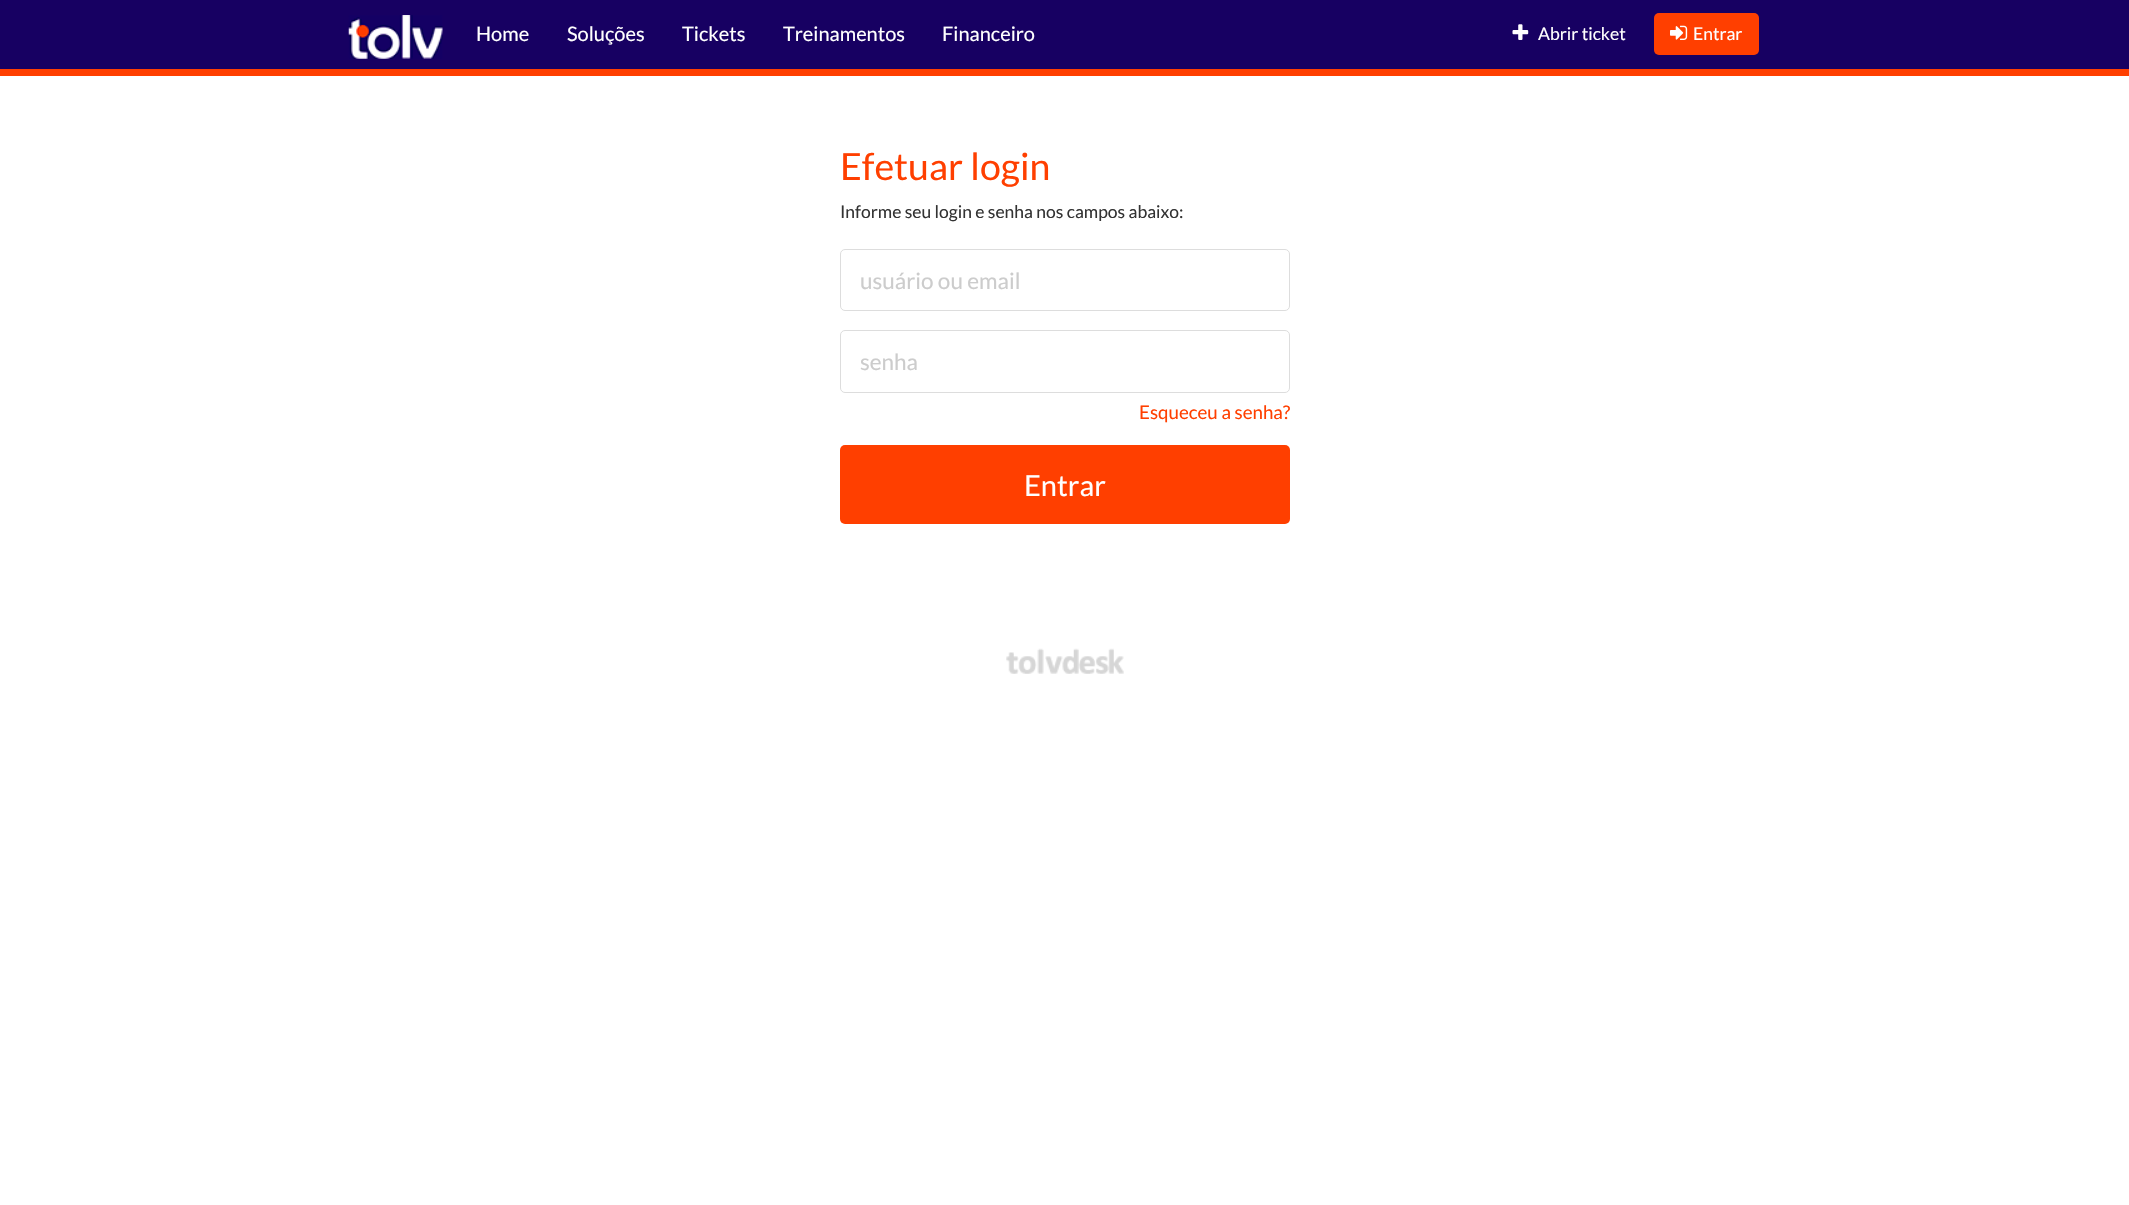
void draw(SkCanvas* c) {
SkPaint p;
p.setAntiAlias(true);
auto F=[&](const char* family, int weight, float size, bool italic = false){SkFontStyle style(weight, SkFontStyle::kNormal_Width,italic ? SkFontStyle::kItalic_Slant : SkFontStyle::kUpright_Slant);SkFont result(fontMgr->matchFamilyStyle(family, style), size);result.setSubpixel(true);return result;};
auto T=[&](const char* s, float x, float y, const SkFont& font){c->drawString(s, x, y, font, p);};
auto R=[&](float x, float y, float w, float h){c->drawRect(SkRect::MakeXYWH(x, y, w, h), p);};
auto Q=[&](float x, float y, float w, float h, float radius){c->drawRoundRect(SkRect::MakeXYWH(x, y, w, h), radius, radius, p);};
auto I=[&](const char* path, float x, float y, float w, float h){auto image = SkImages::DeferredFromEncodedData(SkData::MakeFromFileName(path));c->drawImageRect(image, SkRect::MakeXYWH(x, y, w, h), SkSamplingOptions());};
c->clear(0xffffffff);
p.setColor(0xff170062);
R(0,0,2129,69);
I("1.png",348,15,95,44);
auto f1 = F("Lato",400,20);
p.setColor(0xffffffff);
T("Home",476,41,f1);
T("Soluções",567,41,f1);
T("Tickets",682,41,f1);
T("Treinamentos",783,41,f1);
T("Financeiro",942,41,f1);
I("2.png",1512,24,17,16);
auto f2 = F("Lato",400,17.5);
T("Abrir ticket",1538,40,f2);
p.setColor(0xffff3f00);
Q(1654,13,105,42,5);
I("3.png",1670,25,18,15);
p.setColor(0xffffffff);
T("Entrar",1693,40,f2);
p.setColor(0xffff3f00);
R(0,69,2129,7);
auto f3 = F("Lato",400,37.5);
T("Efetuar login",840,180,f3);
p.setColor(0xff333333);
T("Informe seu login e senha nos campos abaixo:",840,218,f2);
p.setStroke(true);
p.setStrokeWidth(1);
p.setColor(0xffdddddd);
c->drawRoundRect(SkRect::MakeXYWH(840.5,249.5,449,61),4.5,4.5,p);
auto f4 = F("Lato",400,22.5);
p.setStroke(false);
p.setColor(0xffcccccc);
T("usuário ou email",860,289,f4);
p.setStroke(true);
p.setColor(0xffdddddd);
c->drawRoundRect(SkRect::MakeXYWH(840.5,330.5,449,62),4.5,4.5,p);
p.setStroke(false);
p.setColor(0xffcccccc);
T("senha",860,370,f4);
auto f5 = F("Lato",400,18.75);
p.setColor(0xffff3f00);
T("Esqueceu a senha?",1139,419,f5);
Q(840,445,450,79,5);
auto f6 = F("Lato",400,29);
p.setColor(0xffffffff);
T("Entrar",1024,496,f6);
I("4.png",1006,648,118,26);
}
